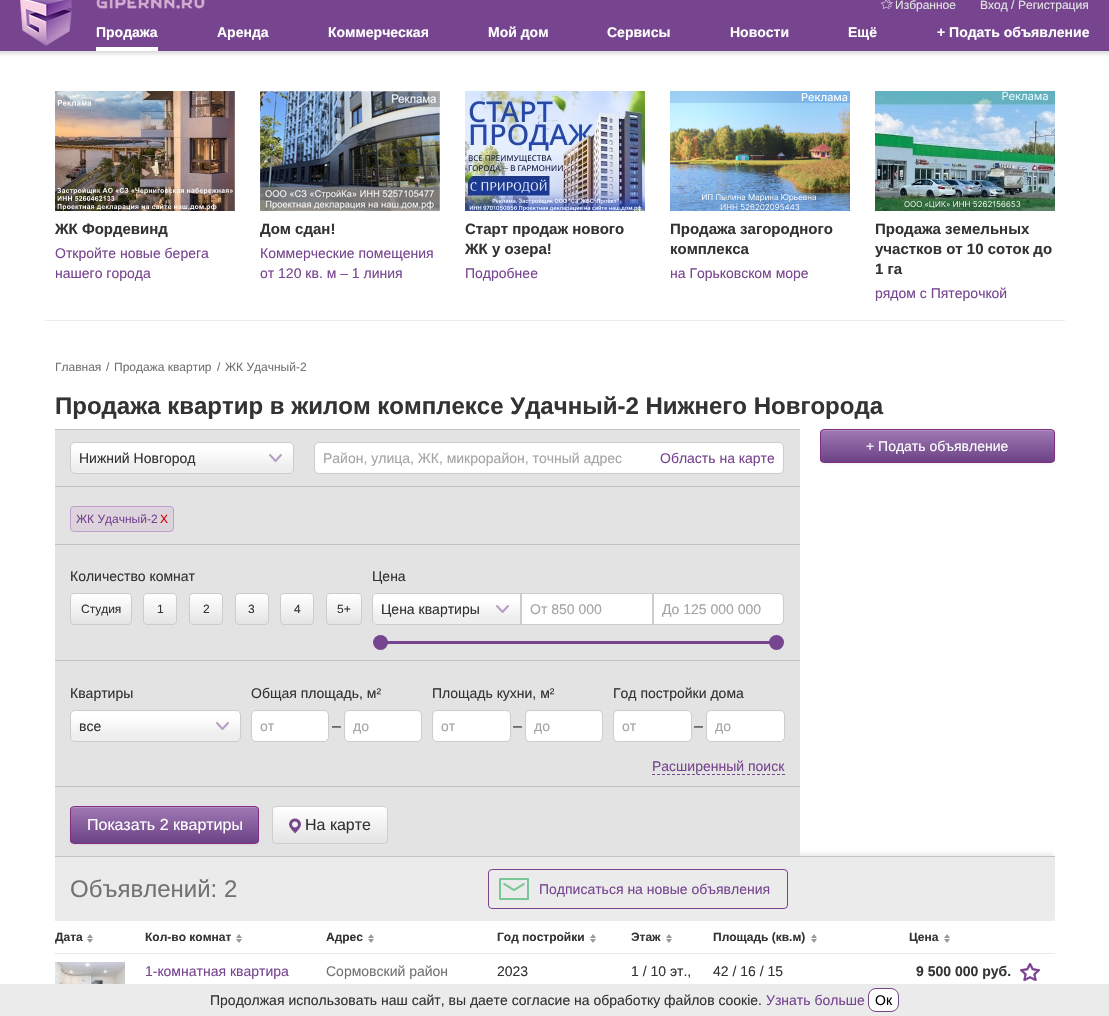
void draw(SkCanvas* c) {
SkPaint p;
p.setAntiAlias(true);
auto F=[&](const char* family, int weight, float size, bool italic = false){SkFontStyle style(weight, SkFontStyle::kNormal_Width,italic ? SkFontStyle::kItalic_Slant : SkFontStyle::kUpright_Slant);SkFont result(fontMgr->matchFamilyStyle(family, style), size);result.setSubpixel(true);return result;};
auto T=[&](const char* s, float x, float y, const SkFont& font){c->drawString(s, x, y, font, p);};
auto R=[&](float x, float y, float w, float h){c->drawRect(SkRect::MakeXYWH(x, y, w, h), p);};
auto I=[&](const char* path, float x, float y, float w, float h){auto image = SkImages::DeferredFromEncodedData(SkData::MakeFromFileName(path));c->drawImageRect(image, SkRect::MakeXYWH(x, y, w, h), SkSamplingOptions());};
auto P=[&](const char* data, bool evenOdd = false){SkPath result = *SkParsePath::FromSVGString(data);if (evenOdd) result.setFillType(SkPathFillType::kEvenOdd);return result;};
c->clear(0xffffffff);
p.setColor(0x21010101);
p.setMaskFilter(SkMaskFilter::MakeBlur(kNormal_SkBlurStyle, 1.5));
c->drawRect(SkRect::MakeXYWH(-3,-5,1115,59),p);
p.setMaskFilter(nullptr);
p.setColor(0xff77458f);
R(0,0,1109,51);
I("1.png",20,0,52,46);
I("2.png",96,0,109,9);
I("3.png",881,0,12,9);
auto f1 = F("Liberation Sans",400,12);
p.setColor(0xffe2e2e2);
T("Избранное",895,9,f1);
T("Вход /",980,9,f1);
T("Регистрация",1018,9,f1);
p.setColor(0xffffffff);
R(96,47,62,4);
auto f2 = F("Liberation Sans",700,14);
T("Продажа",96,37,f2);
T("Аренда",217,37,f2);
T("Коммерческая",328,37,f2);
T("Мой дом",488,37,f2);
T("Сервисы",607,37,f2);
T("Новости",730,37,f2);
T("Ещё",848,37,f2);
T("+ Подать объявление",937,37,f2);
p.setColor(0xffebebeb);
R(45,320,1020,1);
I("4.png",55,91,180,120);
auto f3 = F("Liberation Sans",700,15);
p.setColor(0xff333333);
T("ЖК Фордевинд",55,234,f3);
auto f4 = F("Liberation Sans",400,14);
p.setColor(0xff77458f);
T("Откройте новые берега",55,258,f4);
T("нашего города",55,278,f4);
I("5.png",260,91,180,120);
p.setColor(0xff333333);
T("Дом сдан!",260,234,f3);
p.setColor(0xff77458f);
T("Коммерческие помещения",260,258,f4);
T("от 120 кв. м – 1 линия",260,278,f4);
I("6.png",465,91,180,120);
p.setColor(0xff333333);
T("Старт продаж нового",465,234,f3);
T("ЖК у озера!",465,254,f3);
p.setColor(0xff77458f);
T("Подробнее",465,278,f4);
I("7.png",670,91,180,120);
p.setColor(0xff333333);
T("Продажа загородного",670,234,f3);
T("комплекса",670,254,f3);
p.setColor(0xff77458f);
T("на Горьковском море",670,278,f4);
I("8.png",875,91,180,120);
p.setColor(0xff333333);
T("Продажа земельных",875,234,f3);
T("участков от 10 соток до",875,254,f3);
T("1 га",875,274,f3);
p.setColor(0xff77458f);
T("рядом с Пятерочкой",875,298,f4);
p.setColor(0xff727272);
T("Главная",55,371,f1);
T("/",106,371,f1);
T("Продажа квартир",114,371,f1);
T("/",217,371,f1);
T("ЖК Удачный-2",225,371,f1);
auto f5 = F("Liberation Sans",700,24);
p.setColor(0xff333333);
T("Продажа квартир в жилом комплексе Удачный-2 Нижнего Новгорода",55,414,f5);
p.setColor(0x0d000000);
p.setMaskFilter(SkMaskFilter::MakeBlur(kNormal_SkBlurStyle, 1));
c->drawRoundRect(SkRect::MakeXYWH(820,430,235,34),4,4,p);
p.setMaskFilter(nullptr);
c->save();
c->clipPath(P("M824 429h227c2 0 4 2 4 4v26c0 2-2 4-4 4h-227c-2 0-4-2-4-4v-26c0-2 2-4 4-4z"),true);
{
const SkColor colors[] = {0xff9f79b3,0xff6c4285};
const float stops[] = {0,1};
const SkPoint ends[] = {{938,430}, {938,462}};
p.setShader(SkGradientShader::MakeLinear(ends, colors, stops, 2, SkTileMode::kClamp));
p.setAlpha(255);
}
R(820,430,235,32);
c->restore();
p.setShader(nullptr);
p.setColor(0xffb193c1);
c->drawPath(P("M824 431h227c2 0 3 1 3 3c0-2-1-4-3-4h-227c-2 0-3 2-3 4c0-2 1-3 3-3z"),p);
p.setStroke(true);
p.setStrokeWidth(1);
p.setColor(0xff832e85);
c->drawRoundRect(SkRect::MakeXYWH(820.5,429.5,234,33),3.5,3.5,p);
p.setStroke(false);
p.setColor(0xffffffff);
T("+ Подать объявление",866,451,f4);
p.setColor(0x4dc2c2c2);
p.setMaskFilter(SkMaskFilter::MakeBlur(kNormal_SkBlurStyle, 1.5));
c->drawRect(SkRect::MakeXYWH(57,853,996,61),p);
p.setMaskFilter(nullptr);
p.setColor(0xffe3e3e3);
R(55,430,745,426);
p.setColor(0xffc2c2c2);
R(55,429,745,1);
c->save();
c->clipPath(P("M75 442h214c3 0 5 2 5 5v22c0 3-2 5-5 5h-214c-3 0-5-2-5-5v-22c0-3 2-5 5-5z"),true);
{
const SkColor colors[] = {0xffeeeeee,0xffffffff};
const float stops[] = {.2,.8};
const SkPoint ends[] = {{182,473}, {182,443}};
p.setShader(SkGradientShader::MakeLinear(ends, colors, stops, 2, SkTileMode::kClamp));
p.setAlpha(255);
}
R(71,443,222,30);
c->restore();
p.setStroke(true);
p.setStrokeWidth(2);
p.setStrokeCap(SkPaint::kRound_Cap);
p.setStrokeJoin(SkPaint::kRound_Join);
p.setShader(nullptr);
p.setColor(0xffb89ec4);
c->drawPath(P("M281 455l-5.5 6l-5.5-6"),p);
p.setStrokeWidth(1);
p.setStrokeCap(SkPaint::kButt_Cap);
p.setStrokeJoin(SkPaint::kMiter_Join);
p.setColor(0xffcccccc);
c->drawRoundRect(SkRect::MakeXYWH(70.5,442.5,223,31),4.5,4.5,p);
p.setStroke(false);
p.setColor(0xff333333);
T("Нижний Новгород",79,463,f4);
p.setColor(0xffffffff);
c->drawRoundRect(SkRect::MakeXYWH(314.5,442.5,469,31),4.5,4.5,p);
p.setStroke(true);
p.setColor(0xffcccccc);
c->drawRoundRect(SkRect::MakeXYWH(314.5,442.5,469,31),4.5,4.5,p);
p.setStroke(false);
p.setColor(0xffa4a4a4);
T("Район, улица, ЖК, микрорайон, точный адрес",323,463,f4);
p.setColor(0xff77458f);
T("Область на карте",660,463,f4);
p.setColor(0xffc2c2c2);
R(55,486,745,1);
p.setColor(0xffdcd3dc);
c->drawRoundRect(SkRect::MakeXYWH(70.5,506.5,103,25),3.5,3.5,p);
p.setStroke(true);
p.setColor(0xffbf9dd0);
c->drawRoundRect(SkRect::MakeXYWH(70.5,506.5,103,25),3.5,3.5,p);
p.setStroke(false);
p.setColor(0xff77458f);
T("ЖК Удачный-2",76,523,f1);
p.setColor(0xffcc0000);
T("X",160,523,f1);
p.setColor(0xffc2c2c2);
R(55,544,745,1);
p.setColor(0xff333333);
T("Количество комнат",70,581,f4);
c->save();
c->clipPath(P("M74 593h54c2 0 4 2 4 4v24c0 2-2 4-4 4h-54c-2 0-4-2-4-4v-24c0-2 2-4 4-4z"),true);
{
const SkColor colors[] = {0xffffffff,0xffe4e4e4};
const float stops[] = {.04,1};
const SkPoint ends[] = {{101,594}, {101,624}};
p.setShader(SkGradientShader::MakeLinear(ends, colors, stops, 2, SkTileMode::kClamp));
p.setAlpha(255);
}
R(70,594,62,30);
c->restore();
p.setStroke(true);
p.setShader(nullptr);
p.setColor(0xffcccccc);
c->drawRoundRect(SkRect::MakeXYWH(70.5,593.5,61,31),3.5,3.5,p);
p.setStroke(false);
p.setColor(0xff333333);
T("Студия",81,613,f1);
c->save();
c->clipPath(P("M147 593h26c2 0 4 2 4 4v24c0 2-2 4-4 4h-26c-2 0-4-2-4-4v-24c0-2 2-4 4-4z"),true);
{
const SkColor colors[] = {0xffffffff,0xffe4e4e4};
const float stops[] = {.04,1};
const SkPoint ends[] = {{160,594}, {160,624}};
p.setShader(SkGradientShader::MakeLinear(ends, colors, stops, 2, SkTileMode::kClamp));
p.setAlpha(255);
}
R(143,594,34,30);
c->restore();
p.setStroke(true);
p.setShader(nullptr);
p.setColor(0xffcccccc);
c->drawRoundRect(SkRect::MakeXYWH(143.5,593.5,33,31),3.5,3.5,p);
p.setStroke(false);
p.setColor(0xff333333);
T("1",157,613,f1);
c->save();
c->clipPath(P("M193 593h26c2 0 4 2 4 4v24c0 2-2 4-4 4h-26c-2 0-4-2-4-4v-24c0-2 2-4 4-4z"),true);
{
const SkColor colors[] = {0xffffffff,0xffe4e4e4};
const float stops[] = {.04,1};
const SkPoint ends[] = {{206,594}, {206,624}};
p.setShader(SkGradientShader::MakeLinear(ends, colors, stops, 2, SkTileMode::kClamp));
p.setAlpha(255);
}
R(189,594,34,30);
c->restore();
p.setStroke(true);
p.setShader(nullptr);
p.setColor(0xffcccccc);
c->drawRoundRect(SkRect::MakeXYWH(189.5,593.5,33,31),3.5,3.5,p);
p.setStroke(false);
p.setColor(0xff333333);
T("2",203,613,f1);
c->save();
c->clipPath(P("M239 593h26c2 0 4 2 4 4v24c0 2-2 4-4 4h-26c-2 0-4-2-4-4v-24c0-2 2-4 4-4z"),true);
{
const SkColor colors[] = {0xffffffff,0xffe4e4e4};
const float stops[] = {.04,1};
const SkPoint ends[] = {{252,594}, {252,624}};
p.setShader(SkGradientShader::MakeLinear(ends, colors, stops, 2, SkTileMode::kClamp));
p.setAlpha(255);
}
R(235,594,34,30);
c->restore();
p.setStroke(true);
p.setShader(nullptr);
p.setColor(0xffcccccc);
c->drawRoundRect(SkRect::MakeXYWH(235.5,593.5,33,31),3.5,3.5,p);
p.setStroke(false);
p.setColor(0xff333333);
T("3",248,613,f1);
c->save();
c->clipPath(P("M284 593h26c2 0 4 2 4 4v24c0 2-2 4-4 4h-26c-2 0-4-2-4-4v-24c0-2 2-4 4-4z"),true);
{
const SkColor colors[] = {0xffffffff,0xffe4e4e4};
const float stops[] = {.04,1};
const SkPoint ends[] = {{297,594}, {297,624}};
p.setShader(SkGradientShader::MakeLinear(ends, colors, stops, 2, SkTileMode::kClamp));
p.setAlpha(255);
}
R(280,594,34,30);
c->restore();
p.setStroke(true);
p.setShader(nullptr);
p.setColor(0xffcccccc);
c->drawRoundRect(SkRect::MakeXYWH(280.5,593.5,33,31),3.5,3.5,p);
p.setStroke(false);
p.setColor(0xff333333);
T("4",294,613,f1);
c->save();
c->clipPath(P("M330 593h28c2 0 4 2 4 4v24c0 2-2 4-4 4h-28c-2 0-4-2-4-4v-24c0-2 2-4 4-4z"),true);
{
const SkColor colors[] = {0xffffffff,0xffe4e4e4};
const float stops[] = {.04,1};
const SkPoint ends[] = {{344,594}, {344,624}};
p.setShader(SkGradientShader::MakeLinear(ends, colors, stops, 2, SkTileMode::kClamp));
p.setAlpha(255);
}
R(326,594,36,30);
c->restore();
p.setStroke(true);
p.setShader(nullptr);
p.setColor(0xffcccccc);
c->drawRoundRect(SkRect::MakeXYWH(326.5,593.5,35,31),3.5,3.5,p);
p.setStroke(false);
p.setColor(0xff333333);
T("5+",337,613,f1);
T("Цена",372,581,f4);
{
const SkColor colors[] = {0xffeeeeee,0xffffffff};
const float stops[] = {.2,.8};
const SkPoint ends[] = {{447,624}, {447,594}};
p.setShader(SkGradientShader::MakeLinear(ends, colors, stops, 2, SkTileMode::kClamp));
p.setAlpha(255);
}
R(373,594,147,30);
p.setStroke(true);
p.setStrokeWidth(2);
p.setStrokeCap(SkPaint::kRound_Cap);
p.setStrokeJoin(SkPaint::kRound_Join);
p.setShader(nullptr);
p.setColor(0xffb89ec4);
c->drawPath(P("M508 606l-5.5 6l-5.5-6"),p);
p.setStrokeWidth(1);
p.setStrokeCap(SkPaint::kButt_Cap);
p.setStrokeJoin(SkPaint::kMiter_Join);
p.setColor(0xffcccccc);
c->drawPath(P("M377 593.5h143.5v31h-143.5c-2.5 0-4.5-2-4.5-4.5v-22c0-2.5 2-4.5 4.5-4.5z"),p);
p.setStroke(false);
p.setColor(0xff333333);
T("Цена квартиры",381,614,f4);
p.setColor(0xffffffff);
c->drawRect(SkRect::MakeXYWH(521.5,593.5,131,31),p);
p.setStroke(true);
p.setColor(0xffcccccc);
c->drawRect(SkRect::MakeXYWH(521.5,593.5,131,31),p);
p.setStroke(false);
p.setColor(0xffa4a4a4);
T("От 850 000",530,614,f4);
p.setColor(0xffffffff);
c->drawPath(P("M653.5 593.5h125.5c2.5 0 4.5 2 4.5 4.5v22c0 2.5-2 4.5-4.5 4.5h-125.5z"),p);
p.setStroke(true);
p.setColor(0xffcccccc);
c->drawPath(P("M653.5 593.5h125.5c2.5 0 4.5 2 4.5 4.5v22c0 2.5-2 4.5-4.5 4.5h-125.5z"),p);
c->save();
c->clipRect(SkRect::MakeXYWH(662,601,113,16));
p.setStroke(false);
p.setColor(0xffa4a4a4);
T("До 125 000 000",662,614,f4);
c->restore();
p.setStroke(true);
p.setColor(0xff77458f);
c->drawRect(SkRect::MakeXYWH(379.5,641.5,397,2),p);
p.setStroke(false);
R(380,642,396,1);
c->drawCircle(380.5,642.5,7.5,p);
c->drawCircle(776.5,642.5,7.5,p);
p.setColor(0xffc2c2c2);
R(55,660,745,1);
p.setColor(0xff333333);
T("Квартиры",70,698,f4);
c->save();
c->clipPath(P("M75 710h161c3 0 5 2 5 5v22c0 3-2 5-5 5h-161c-3 0-5-2-5-5v-22c0-3 2-5 5-5z"),true);
{
const SkColor colors[] = {0xffeeeeee,0xffffffff};
const float stops[] = {.2,.8};
const SkPoint ends[] = {{156,741}, {156,711}};
p.setShader(SkGradientShader::MakeLinear(ends, colors, stops, 2, SkTileMode::kClamp));
p.setAlpha(255);
}
R(71,711,169,30);
c->restore();
p.setStroke(true);
p.setStrokeWidth(2);
p.setStrokeCap(SkPaint::kRound_Cap);
p.setStrokeJoin(SkPaint::kRound_Join);
p.setShader(nullptr);
p.setColor(0xffb89ec4);
c->drawPath(P("M228 723l-5.5 6l-5.5-6"),p);
p.setStrokeWidth(1);
p.setStrokeCap(SkPaint::kButt_Cap);
p.setStrokeJoin(SkPaint::kMiter_Join);
p.setColor(0xffcccccc);
c->drawRoundRect(SkRect::MakeXYWH(70.5,710.5,170,31),4.5,4.5,p);
p.setStroke(false);
p.setColor(0xff333333);
T("все",79,731,f4);
T("Общая площадь, м²",251,698,f4);
p.setColor(0xffffffff);
c->drawRoundRect(SkRect::MakeXYWH(251.5,710.5,77,31),4.5,4.5,p);
p.setStroke(true);
p.setColor(0xffcccccc);
c->drawRoundRect(SkRect::MakeXYWH(251.5,710.5,77,31),4.5,4.5,p);
p.setStroke(false);
p.setColor(0xffa4a4a4);
T("от",260,731,f4);
auto f6 = F("Liberation Sans",400,16);
p.setColor(0xff333333);
T("–",332,731,f6);
p.setColor(0xffffffff);
c->drawRoundRect(SkRect::MakeXYWH(344.5,710.5,77,31),4.5,4.5,p);
p.setStroke(true);
p.setColor(0xffcccccc);
c->drawRoundRect(SkRect::MakeXYWH(344.5,710.5,77,31),4.5,4.5,p);
c->save();
c->clipRect(SkRect::MakeXYWH(353,718,60,16));
p.setStroke(false);
p.setColor(0xffa4a4a4);
T("до",353,731,f4);
c->restore();
p.setColor(0xff333333);
T("Площадь кухни, м²",432,698,f4);
p.setColor(0xffffffff);
c->drawRoundRect(SkRect::MakeXYWH(432.5,710.5,78,31),4.5,4.5,p);
p.setStroke(true);
p.setColor(0xffcccccc);
c->drawRoundRect(SkRect::MakeXYWH(432.5,710.5,78,31),4.5,4.5,p);
p.setStroke(false);
p.setColor(0xffa4a4a4);
T("от",441,731,f4);
p.setColor(0xff333333);
T("–",513,731,f6);
p.setColor(0xffffffff);
c->drawRoundRect(SkRect::MakeXYWH(525.5,710.5,77,31),4.5,4.5,p);
p.setStroke(true);
p.setColor(0xffcccccc);
c->drawRoundRect(SkRect::MakeXYWH(525.5,710.5,77,31),4.5,4.5,p);
c->save();
c->clipRect(SkRect::MakeXYWH(534,718,60,16));
p.setStroke(false);
p.setColor(0xffa4a4a4);
T("до",534,731,f4);
c->restore();
p.setColor(0xff333333);
T("Год постройки дома",613,698,f4);
p.setColor(0xffffffff);
c->drawRoundRect(SkRect::MakeXYWH(613.5,710.5,78,31),4.5,4.5,p);
p.setStroke(true);
p.setColor(0xffcccccc);
c->drawRoundRect(SkRect::MakeXYWH(613.5,710.5,78,31),4.5,4.5,p);
p.setStroke(false);
p.setColor(0xffa4a4a4);
T("от",622,731,f4);
p.setColor(0xff333333);
T("–",694,731,f6);
p.setColor(0xffffffff);
c->drawRoundRect(SkRect::MakeXYWH(706.5,710.5,78,31),4.5,4.5,p);
p.setStroke(true);
p.setColor(0xffcccccc);
c->drawRoundRect(SkRect::MakeXYWH(706.5,710.5,78,31),4.5,4.5,p);
p.setStroke(false);
p.setColor(0xffa4a4a4);
T("до",715,731,f4);
p.setColor(0xff77458f);
T("Расширенный поиск",652,771,f4);
p.setStroke(true);
p.setPathEffect(SkDashPathEffect::Make({{3,2}}, 0));
c->drawPath(P("M652 774.5h133"),p);
p.setPathEffect(nullptr);
p.setStroke(false);
p.setColor(0xffc2c2c2);
R(55,786,745,1);
p.setColor(0x0d000000);
p.setMaskFilter(SkMaskFilter::MakeBlur(kNormal_SkBlurStyle, 1));
c->drawRoundRect(SkRect::MakeXYWH(70,807,189,38),4,4,p);
p.setMaskFilter(nullptr);
c->save();
c->clipPath(P("M74 806h181c2 0 4 2 4 4v30c0 2-2 4-4 4h-181c-2 0-4-2-4-4v-30c0-2 2-4 4-4z"),true);
{
const SkColor colors[] = {0xff9f79b3,0xff6c4285};
const float stops[] = {0,1};
const SkPoint ends[] = {{165,807}, {165,843}};
p.setShader(SkGradientShader::MakeLinear(ends, colors, stops, 2, SkTileMode::kClamp));
p.setAlpha(255);
}
R(70,807,189,36);
c->restore();
p.setShader(nullptr);
p.setColor(0xffb193c1);
c->drawPath(P("M74 808h181c2 0 3 1 3 3c0-2-1-4-3-4h-182c-2 1-2 2-2 4c0-2 1-3 3-3z"),p);
p.setStroke(true);
p.setColor(0xff832e85);
c->drawRoundRect(SkRect::MakeXYWH(70.5,806.5,188,37),3.5,3.5,p);
p.setStroke(false);
p.setColor(0xffffffff);
T("Показать 2 квартиры",87,830,f6);
c->save();
c->clipPath(P("M276 806h108c2 0 4 2 4 4v30c0 2-2 4-4 4h-108c-2 0-4-2-4-4v-30c0-2 2-4 4-4z"),true);
{
const SkColor colors[] = {0xffffffff,0xffe4e4e4};
const float stops[] = {0,1};
const SkPoint ends[] = {{330,807}, {330,843}};
p.setShader(SkGradientShader::MakeLinear(ends, colors, stops, 2, SkTileMode::kClamp));
p.setAlpha(255);
}
R(272,807,116,36);
c->restore();
p.setStroke(true);
p.setShader(nullptr);
p.setColor(0xffcecece);
c->drawRoundRect(SkRect::MakeXYWH(272.5,806.5,115,37),3.5,3.5,p);
I("9.png",289,818,12,16);
p.setStroke(false);
p.setColor(0xff333333);
T("На карте",305,830,f6);
p.setColor(0xffebebeb);
R(55,857,1000,64);
p.setColor(0xffc2c2c2);
R(55,856,1000,1);
auto f7 = F("Liberation Sans",400,24);
p.setColor(0xff727272);
T("Объявлений: 2",70,897,f7);
p.setStroke(true);
p.setColor(0xff77458f);
c->drawRoundRect(SkRect::MakeXYWH(488.5,869.5,299,39),3.5,3.5,p);
I("10.png",499,878,30,22);
p.setStroke(false);
T("Подписаться на новые объявления",539,894,f4);
p.setColor(0xffebebeb);
R(54,953,1001,1);
auto f8 = F("Liberation Sans",700,12);
p.setColor(0xff333333);
T("Дата",55,941,f8);
I("11.png",87,934,6,9);
T("Кол-во комнат",145,941,f8);
I("11.png",236,934,6,9);
T("Адрес",326,941,f8);
I("11.png",368,934,6,9);
T("Год постройки",497,941,f8);
I("11.png",590,934,6,9);
T("Этаж",631,941,f8);
I("11.png",666,934,6,9);
T("Площадь (кв.м)",713,941,f8);
I("11.png",811,934,6,9);
T("Цена",909,941,f8);
I("11.png",944,934,6,9);
I("12.png",55,962,70,22);
p.setColor(0xff77458f);
T("1-комнатная квартира",145,976,f4);
p.setColor(0xff727272);
T("Сормовский район",326,976,f4);
p.setColor(0xff333333);
T("2023",497,976,f4);
T("1 / 10 эт.,",631,976,f4);
T("42 / 16 / 15",713,976,f4);
T("9 500 000 руб.",916,976,f2);
I("13.png",1020,963,20,18);
p.setColor(0xffebebeb);
R(0,984,1109,32);
p.setColor(0xff333333);
T("Продолжая использовать наш сайт, вы даете согласие на обработку файлов сoокіе.",210,1005,f4);
p.setColor(0xff77458f);
T("Узнать больше",766,1005,f4);
p.setColor(0xffffffff);
c->drawRoundRect(SkRect::MakeXYWH(868.5,988.5,30,23),7.5,7.5,p);
p.setStroke(true);
p.setColor(0xff77458f);
c->drawRoundRect(SkRect::MakeXYWH(868.5,988.5,30,23),7.5,7.5,p);
p.setStroke(false);
p.setColor(0xff000000);
T("Ок",875,1005,f4);
}
